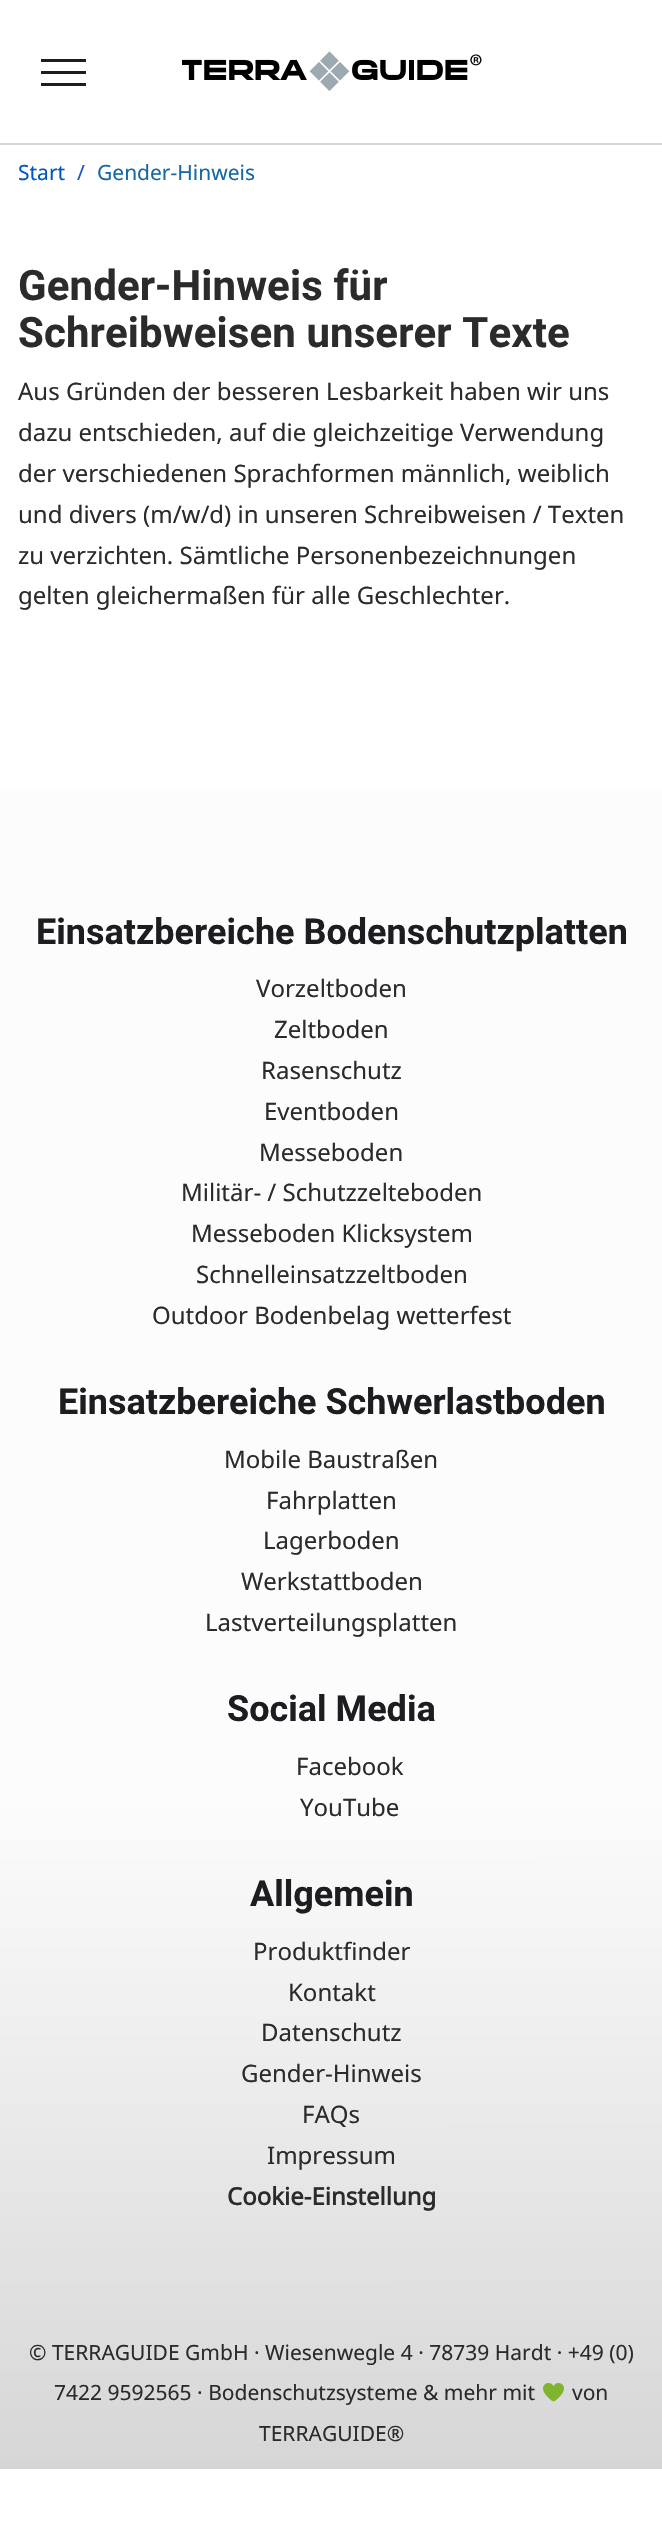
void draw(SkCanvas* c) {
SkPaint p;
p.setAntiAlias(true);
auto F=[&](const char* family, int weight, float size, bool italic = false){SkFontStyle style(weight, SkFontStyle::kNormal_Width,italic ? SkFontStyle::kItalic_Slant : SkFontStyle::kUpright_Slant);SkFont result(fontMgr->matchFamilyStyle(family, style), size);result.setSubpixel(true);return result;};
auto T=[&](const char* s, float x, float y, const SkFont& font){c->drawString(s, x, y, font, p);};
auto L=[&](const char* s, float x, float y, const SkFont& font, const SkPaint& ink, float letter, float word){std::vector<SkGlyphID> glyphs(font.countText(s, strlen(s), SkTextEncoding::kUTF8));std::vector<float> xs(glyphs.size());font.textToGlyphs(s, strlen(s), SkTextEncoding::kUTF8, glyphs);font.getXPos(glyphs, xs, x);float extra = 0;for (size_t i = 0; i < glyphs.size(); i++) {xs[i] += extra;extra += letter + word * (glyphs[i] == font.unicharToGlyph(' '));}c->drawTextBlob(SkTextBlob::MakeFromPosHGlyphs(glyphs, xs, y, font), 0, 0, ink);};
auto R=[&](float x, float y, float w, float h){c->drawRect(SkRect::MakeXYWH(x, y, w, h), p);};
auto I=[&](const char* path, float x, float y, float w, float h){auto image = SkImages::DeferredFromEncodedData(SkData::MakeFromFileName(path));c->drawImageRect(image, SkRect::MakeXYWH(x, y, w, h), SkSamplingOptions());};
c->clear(0xffffffff);
p.setColor(0xffd7d7d7);
R(0,143,662,2);
p.setColor(0xff1d1d21);
R(41,71,45,3);
R(41,59,45,3);
R(41,83,45,3);
I("1.png",182,51,300,40);
auto f1 = F("Noto Sans",400,21);
p.setColor(0xff0056bc);
T("Start",18,180,f1);
p.setColor(0xff1e5ebe);
T("/",77,180,f1);
p.setColor(0xff1869a3);
T("Gender-Hinweis",97,180,f1);
auto f2 = F("Roboto",700,42);
p.setColor(0xff2b2b2b);
L("Gender-Hinweis für",18,300,f2,p,.1,0);
L("Schreibweisen unserer Texte",18,347,f2,p,.1,0);
auto f3 = F("Noto Sans",400,24);
T("Aus Gründen der besseren Lesbarkeit haben wir uns",18,400,f3);
T("dazu entschieden, auf die gleichzeitige Verwendung",18,441,f3);
T("der verschiedenen Sprachformen männlich, weiblich",18,482,f3);
T("und divers (m/w/d) in unseren Schreibweisen / Texten",18,523,f3);
T("zu verzichten. Sämtliche Personenbezeichnungen",18,564,f3);
T("gelten gleichermaßen für alle Geschlechter.",18,604,f3);
{
const SkColor colors[] = {0xfffcfcfc,0xffd6d6d6};
const float stops[] = {.6,1};
const SkPoint ends[] = {{331,791}, {332,2469}};
p.setShader(SkGradientShader::MakeLinear(ends, colors, stops, 2, SkTileMode::kClamp));
p.setAlpha(255);
}
R(0,791,662,1678);
auto f4 = F("Roboto",700,36);
p.setShader(nullptr);
p.setColor(0xff1d1d21);
T("Einsatzbereiche Bodenschutzplatten",36,944,f4);
p.setColor(0xff2b2b2b);
T("Vorzeltboden",256,997,f3);
T("Zeltboden",274,1038,f3);
T("Rasenschutz",261,1079,f3);
T("Eventboden",264,1120,f3);
T("Messeboden",259,1161,f3);
T("Militär- / Schutzzelteboden",181,1201,f3);
T("Messeboden Klicksystem",191,1242,f3);
T("Schnelleinsatzzeltboden",196,1283,f3);
T("Outdoor Bodenbelag wetterfest",152,1324,f3);
p.setColor(0xff1d1d21);
T("Einsatzbereiche Schwerlastboden",58,1414,f4);
p.setColor(0xff2b2b2b);
T("Mobile Baustraßen",224,1468,f3);
T("Fahrplatten",266,1509,f3);
T("Lagerboden",263,1549,f3);
T("Werkstattboden",241,1590,f3);
T("Lastverteilungsplatten",205,1631,f3);
p.setColor(0xff1d1d21);
T("Social Media",227,1721,f4);
p.setColor(0xff2b2b2b);
T("Facebook",296,1775,f3);
T("YouTube",300,1816,f3);
p.setColor(0xff1d1d21);
T("Allgemein",250,1906,f4);
p.setColor(0xff2b2b2b);
T("Produktfinder",253,1960,f3);
T("Kontakt",288,2001,f3);
T("Datenschutz",261,2041,f3);
T("Gender-Hinweis",241,2082,f3);
T("FAQs",302,2123,f3);
T("Impressum",267,2164,f3);
auto f5 = F("Noto Sans",700,24);
T("Cookie-Einstellung",227,2205,f5);
T("© TERRAGUIDE GmbH · Wiesenwegle 4 · 78739 Hardt · +49 (0)",29,2360,f1);
T("7422 9592565 · Bodenschutzsysteme & mehr mit",54,2400,f1);
I("2.png",543,2382,21,20);
T("von",572,2400,f1);
T("TERRAGUIDE®",259,2441,f1);
}
